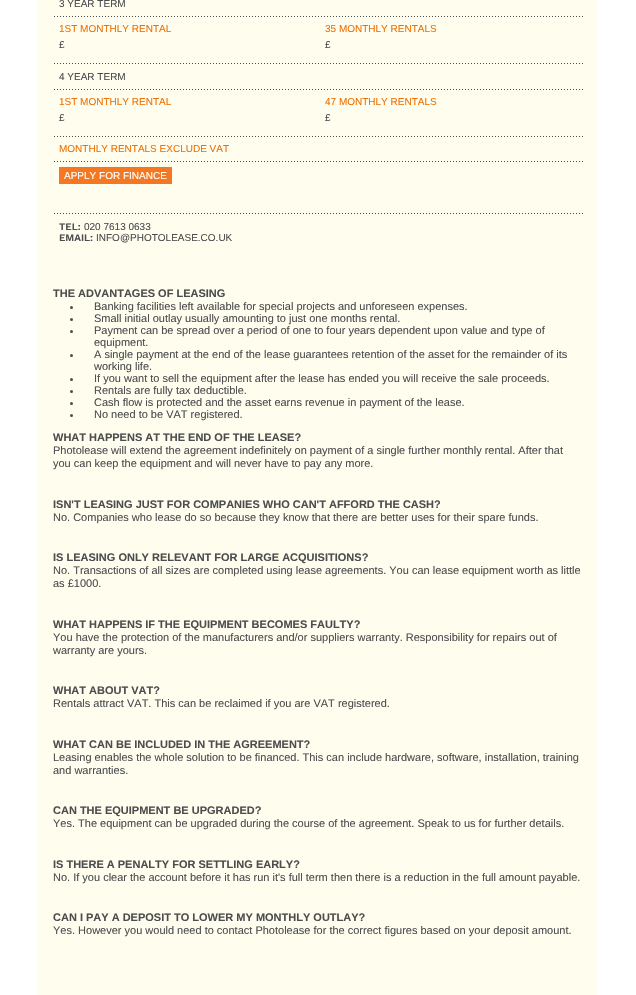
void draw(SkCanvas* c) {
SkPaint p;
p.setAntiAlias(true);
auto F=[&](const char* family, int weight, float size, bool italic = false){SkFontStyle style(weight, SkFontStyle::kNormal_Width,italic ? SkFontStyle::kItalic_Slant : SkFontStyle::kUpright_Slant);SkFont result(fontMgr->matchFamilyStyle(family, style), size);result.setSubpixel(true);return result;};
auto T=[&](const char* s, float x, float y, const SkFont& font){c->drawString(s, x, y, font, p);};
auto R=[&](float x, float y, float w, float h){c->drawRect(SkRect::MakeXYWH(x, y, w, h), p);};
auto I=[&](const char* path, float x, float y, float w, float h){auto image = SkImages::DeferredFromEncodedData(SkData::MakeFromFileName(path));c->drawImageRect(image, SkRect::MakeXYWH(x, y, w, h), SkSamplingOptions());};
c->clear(0xffffffff);
p.setColor(0xfffffdee);
R(38,0,560,995);
I("1.png",54,16,529,1);
auto f1 = F("Liberation Sans",400,10);
p.setColor(0xff4c4d4f);
T("3 YEAR TERM",59,7,f1);
I("1.png",54,63,529,1);
p.setColor(0xffec7206);
T("1ST MONTHLY RENTAL",59,32,f1);
p.setColor(0xff4c4d4f);
T("£",59,48,f1);
p.setColor(0xffec7206);
T("35 MONTHLY RENTALS",325,32,f1);
p.setColor(0xff4c4d4f);
T("£",325,48,f1);
I("1.png",54,89,529,1);
T("4 YEAR TERM",59,80,f1);
I("1.png",54,136,529,1);
p.setColor(0xffec7206);
T("1ST MONTHLY RENTAL",59,105,f1);
p.setColor(0xff4c4d4f);
T("£",59,121,f1);
p.setColor(0xffec7206);
T("47 MONTHLY RENTALS",325,105,f1);
p.setColor(0xff4c4d4f);
T("£",325,121,f1);
I("1.png",54,161,529,1);
p.setColor(0xffec7206);
T("MONTHLY RENTALS EXCLUDE VAT",59,152,f1);
I("1.png",54,213,529,1);
p.setColor(0xfff47721);
R(59,167,113,17);
p.setColor(0xffffffff);
T("APPLY FOR FINANCE",64,179,f1);
auto f2 = F("Work Sans",600,10);
p.setColor(0xff4c4d4f);
T("TEL:",59,230,f2);
T("020 7613 0633",84,230,f1);
T("EMAIL:",59,241,f2);
T("INFO@PHOTOLEASE.CO.UK",96,241,f1);
auto f3 = F("Liberation Sans",700,11);
T("THE ADVANTAGES OF LEASING",53,297,f3);
c->drawCircle(71.5,307.5,1.5,p);
auto f4 = F("Liberation Sans",400,11);
T("Banking facilities left available for special projects and unforeseen expenses.",94,310,f4);
c->drawCircle(71.5,319.5,1.5,p);
T("Small initial outlay usually amounting to just one months rental.",94,322,f4);
c->drawCircle(71.5,331.5,1.5,p);
T("Payment can be spread over a period of one to four years dependent upon value and type of",94,334,f4);
T("equipment.",94,346,f4);
c->drawCircle(71.5,355.5,1.5,p);
T("A single payment at the end of the lease guarantees retention of the asset for the remainder of its",94,358,f4);
T("working life.",94,370,f4);
c->drawCircle(71.5,379.5,1.5,p);
T("If you want to sell the equipment after the lease has ended you will receive the sale proceeds.",94,382,f4);
c->drawCircle(71.5,391.5,1.5,p);
T("Rentals are fully tax deductible.",94,394,f4);
c->drawCircle(71.5,403.5,1.5,p);
T("Cash flow is protected and the asset earns revenue in payment of the lease.",94,406,f4);
c->drawCircle(71.5,415.5,1.5,p);
T("No need to be VAT registered.",94,418,f4);
T("WHAT HAPPENS AT THE END OF THE LEASE?",53,441,f3);
T("Photolease will extend the agreement indefinitely on payment of a single further monthly rental. After that",53,454,f4);
T("you can keep the equipment and will never have to pay any more.",53,467,f4);
T("ISN'T LEASING JUST FOR COMPANIES WHO CAN'T AFFORD THE CASH?",53,508,f3);
T("No. Companies who lease do so because they know that there are better uses for their spare funds.",53,521,f4);
T("IS LEASING ONLY RELEVANT FOR LARGE ACQUISITIONS?",53,561,f3);
T("No. Transactions of all sizes are completed using lease agreements. You can lease equipment worth as little",53,574,f4);
T("as £1000.",53,587,f4);
T("WHAT HAPPENS IF THE EQUIPMENT BECOMES FAULTY?",53,628,f3);
T("You have the protection of the manufacturers and/or suppliers warranty. Responsibility for repairs out of",53,641,f4);
T("warranty are yours.",53,654,f4);
T("WHAT ABOUT VAT?",53,694,f3);
T("Rentals attract VAT. This can be reclaimed if you are VAT registered.",53,707,f4);
T("WHAT CAN BE INCLUDED IN THE AGREEMENT?",53,748,f3);
T("Leasing enables the whole solution to be financed. This can include hardware, software, installation, training",53,761,f4);
T("and warranties.",53,774,f4);
T("CAN THE EQUIPMENT BE UPGRADED?",53,814,f3);
T("Yes. The equipment can be upgraded during the course of the agreement. Speak to us for further details.",53,827,f4);
T("IS THERE A PENALTY FOR SETTLING EARLY?",53,868,f3);
T("No. If you clear the account before it has run it's full term then there is a reduction in the full amount payable.",53,881,f4);
T("CAN I PAY A DEPOSIT TO LOWER MY MONTHLY OUTLAY?",53,921,f3);
T("Yes. However you would need to contact Photolease for the correct figures based on your deposit amount.",53,934,f4);
}
